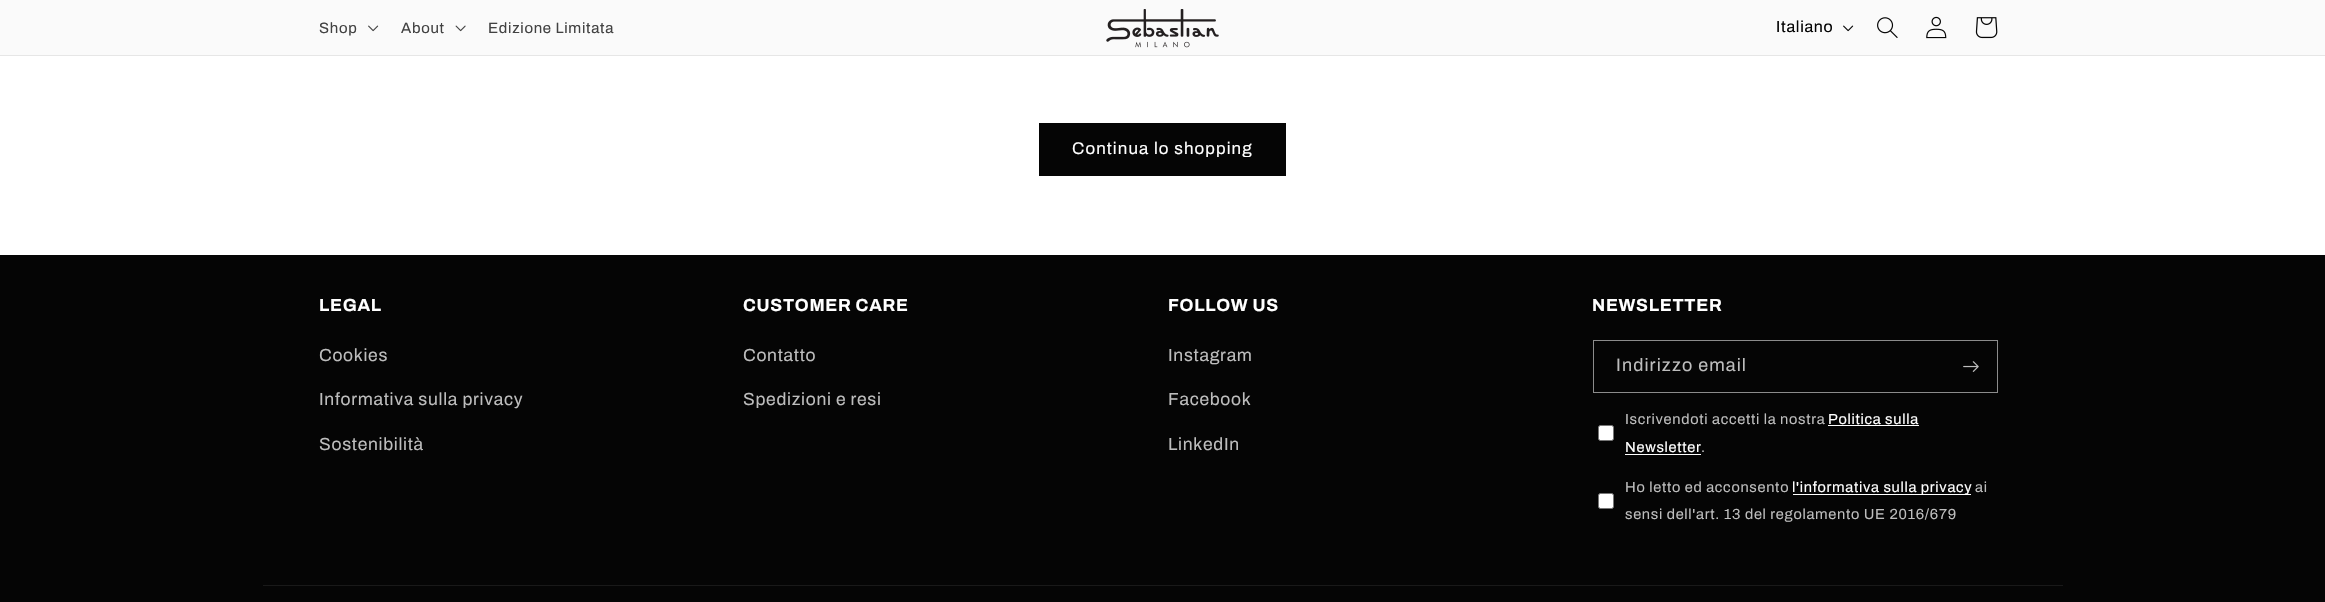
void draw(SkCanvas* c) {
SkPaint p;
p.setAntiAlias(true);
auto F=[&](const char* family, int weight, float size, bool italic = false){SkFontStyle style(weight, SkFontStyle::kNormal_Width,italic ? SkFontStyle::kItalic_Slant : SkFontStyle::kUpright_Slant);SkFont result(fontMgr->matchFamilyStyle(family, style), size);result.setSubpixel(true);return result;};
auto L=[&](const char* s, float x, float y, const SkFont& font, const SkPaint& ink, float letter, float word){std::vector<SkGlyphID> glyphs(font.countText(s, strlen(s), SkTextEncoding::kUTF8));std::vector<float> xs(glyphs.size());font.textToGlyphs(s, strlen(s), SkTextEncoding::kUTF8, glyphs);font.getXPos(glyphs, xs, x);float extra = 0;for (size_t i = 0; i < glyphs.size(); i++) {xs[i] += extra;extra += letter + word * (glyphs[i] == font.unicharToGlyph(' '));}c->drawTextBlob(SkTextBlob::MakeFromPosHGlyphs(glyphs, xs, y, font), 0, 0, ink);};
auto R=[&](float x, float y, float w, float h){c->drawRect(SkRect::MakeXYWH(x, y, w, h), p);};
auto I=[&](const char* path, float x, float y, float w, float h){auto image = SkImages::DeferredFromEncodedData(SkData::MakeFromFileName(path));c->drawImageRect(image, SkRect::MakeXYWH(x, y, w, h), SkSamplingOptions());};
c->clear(0xffffffff);
p.setColor(0xfffafafa);
R(0,0,2325,55);
p.setColor(0xffe6e6e6);
R(0,55,2325,1);
auto f1 = F("Archivo",400,15);
p.setColor(0xff424242);
L("Shop",319,33,f1,p,.7,0);
I("1.png",368,25,11,7);
L("About",401,33,f1,p,.7,0);
I("2.png",455,25,11,7);
L("Edizione Limitata",488,33,f1,p,.7,0);
I("3.png",1106,9,113,39);
auto f2 = F("Archivo",400,16);
p.setColor(0xff050505);
L("Italiano",1776,32,f2,p,.7,0);
I("4.png",1843,25,11,7);
I("5.png",1877,17,21,21);
I("6.png",1926,16,21,23);
I("7.png",1975,17,23,22);
R(1039,123,247,53);
auto f3 = F("Archivo",400,16.9);
p.setColor(0xffffffff);
L("Continua lo shopping",1072,154,f3,p,1.1,0);
p.setColor(0xff050505);
R(0,255,2325,347);
auto f4 = F("Archivo",700,17.5);
p.setColor(0xffffffff);
L("LEGAL",319,311,f4,p,.7,0);
auto f5 = F("Archivo",400,17.5);
p.setColor(0xffbdbdbd);
L("Cookies",319,361,f5,p,.7,0);
L("Informativa sulla privacy",319,405,f5,p,.7,0);
L("Sostenibilità",319,450,f5,p,.7,0);
p.setColor(0xffffffff);
L("CUSTOMER CARE",743,311,f4,p,.7,0);
p.setColor(0xffbdbdbd);
L("Contatto",743,361,f5,p,.7,0);
L("Spedizioni e resi",743,405,f5,p,.7,0);
p.setColor(0xffffffff);
L("FOLLOW US",1168,311,f4,p,.7,0);
p.setColor(0xffbdbdbd);
L("Instagram",1168,361,f5,p,.7,0);
L("Facebook",1168,405,f5,p,.7,0);
L("LinkedIn",1168,450,f5,p,.7,0);
p.setColor(0xffffffff);
L("NEWSLETTER",1592,311,f4,p,.7,0);
p.setStroke(true);
p.setStrokeWidth(1);
p.setColor(0xff8c8c8c);
c->drawRect(SkRect::MakeXYWH(1593.5,340.5,404,52),p);
auto f6 = F("Archivo",400,18);
p.setStroke(false);
p.setColor(0xffbdbdbd);
L("Indirizzo email",1616,371,f6,p,1.1,0);
I("8.png",1963,361,16,11);
p.setColor(0xffffffff);
c->drawRoundRect(SkRect::MakeXYWH(1598.5,425.5,15,15),2,2,p);
p.setStroke(true);
p.setColor(0xff767676);
c->drawRoundRect(SkRect::MakeXYWH(1598.5,425.5,15,15),2,2,p);
auto f7 = F("Archivo",400,14.6);
p.setStroke(false);
p.setColor(0xffbdbdbd);
L("Iscrivendoti accetti la nostra",1625,424,f7,p,.7,0);
p.setColor(0xffffffff);
L("Politica sulla",1828,424,f7,p,.7,0);
R(1828,425,91,1);
L("Newsletter",1625,452,f7,p,.7,0);
R(1625,454,76,1);
p.setColor(0xffbdbdbd);
L(".",1701,452,f7,p,.7,0);
p.setColor(0xffffffff);
c->drawRoundRect(SkRect::MakeXYWH(1598.5,493.5,15,15),2,2,p);
p.setStroke(true);
p.setColor(0xff767676);
c->drawRoundRect(SkRect::MakeXYWH(1598.5,493.5,15,15),2,2,p);
p.setStroke(false);
p.setColor(0xffbdbdbd);
L("Ho letto ed acconsento",1625,492,f7,p,.7,0);
p.setColor(0xffffffff);
R(1793,494,178,1);
L("l'informativa sulla privacy",1792,492,f7,p,.7,0);
p.setColor(0xffbdbdbd);
L("ai",1975,492,f7,p,.7,0);
L("sensi dell'art. 13 del regolamento UE 2016/679",1625,519,f7,p,.7,0);
p.setColor(0xff191919);
R(263,585,1800,1);
}
